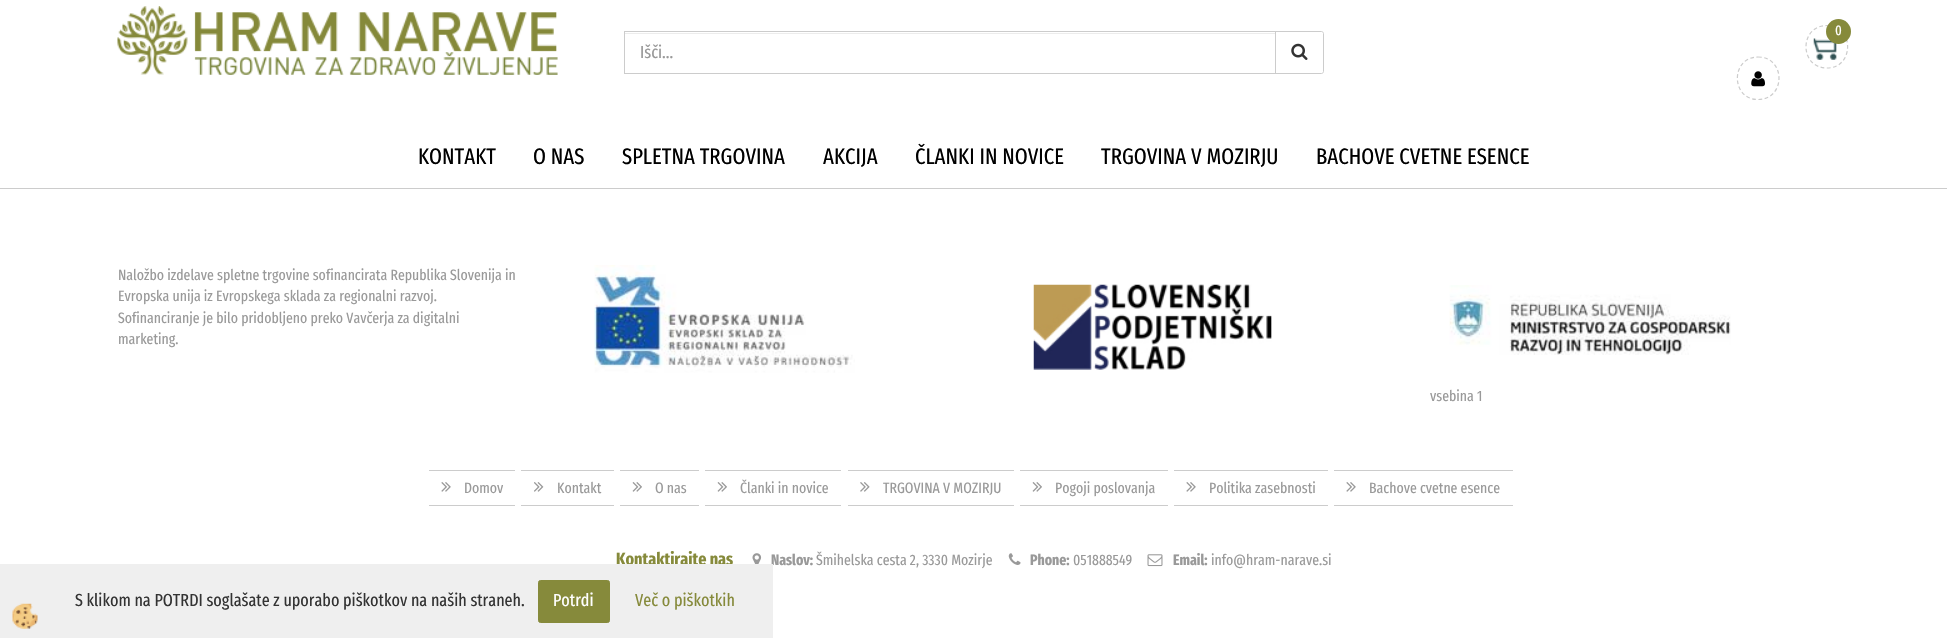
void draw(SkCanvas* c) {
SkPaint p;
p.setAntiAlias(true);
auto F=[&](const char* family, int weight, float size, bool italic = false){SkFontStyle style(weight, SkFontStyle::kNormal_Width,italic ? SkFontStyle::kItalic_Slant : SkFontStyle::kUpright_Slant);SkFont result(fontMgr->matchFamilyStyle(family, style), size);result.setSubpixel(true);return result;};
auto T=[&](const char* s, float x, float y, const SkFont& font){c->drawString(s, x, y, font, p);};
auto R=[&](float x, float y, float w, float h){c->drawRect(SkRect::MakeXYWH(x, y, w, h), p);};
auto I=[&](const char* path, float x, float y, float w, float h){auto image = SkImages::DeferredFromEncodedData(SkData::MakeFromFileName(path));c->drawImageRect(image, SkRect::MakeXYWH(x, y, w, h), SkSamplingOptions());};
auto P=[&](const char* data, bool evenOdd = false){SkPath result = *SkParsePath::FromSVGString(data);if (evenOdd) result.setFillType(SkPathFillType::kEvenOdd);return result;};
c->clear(0xffffffff);
I("1.png",117,6,441,69);
p.setStroke(true);
p.setStrokeWidth(1.2);
p.setColor(0xffcccccc);
p.setPathEffect(SkDashPathEffect::Make({{3.75f,2.5f}}, 0));
c->drawPath(P("M1827 25.5c27.5 0 27.5 42.5 0 42.5c-28 0-28-42.5 0-42.5z"),p);
p.setPathEffect(nullptr);
I("2.png",1813,38,24,22);
p.setStroke(false);
p.setColor(0xff868a3b);
c->drawCircle(1838.5,31.5,12.5,p);
auto f1 = F("Fira Sans Extra Condensed",400,14);
p.setColor(0xffffffff);
T("0",1835,35,f1);
p.setColor(0xffececec);
R(625,33,650,1);
p.setStroke(true);
p.setStrokeWidth(1);
p.setColor(0xffcccccc);
c->drawPath(P("M1275.5 31.5h46c1 0 2 1 2 2v38c0 1-1 2-2 2h-46z"),p);
c->drawRect(SkRect::MakeXYWH(624.5,31.5,651,42),p);
auto f2 = F("Fira Sans Extra Condensed",400,17.5);
p.setStroke(false);
p.setColor(0xff999999);
T("Išči...",640,58,f2);
I("3.png",1291,43,17,17);
p.setStroke(true);
p.setStrokeWidth(1.2);
p.setColor(0xffcccccc);
p.setPathEffect(SkDashPathEffect::Make({{3.75f,2.5f}}, 0));
c->drawPath(P("M1758 57c28 0 28 42.5 0 42.5c-27.5 0-27.5-42.5 0-42.5z"),p);
p.setPathEffect(nullptr);
I("4.png",1751,71,14,16);
p.setStroke(false);
R(0,188,1947,1);
auto f3 = F("Fira Sans Extra Condensed",400,22.5);
p.setColor(0xff000000);
T("KONTAKT",418,164,f3);
T("O NAS",533,164,f3);
T("SPLETNA TRGOVINA",622,164,f3);
T("AKCIJA",823,164,f3);
T("ČLANKI IN NOVICE",915,164,f3);
T("TRGOVINA V MOZIRJU",1101,164,f3);
T("BACHOVE CVETNE ESENCE",1316,164,f3);
auto f4 = F("Fira Sans Extra Condensed",400,15);
p.setColor(0xff999999);
T("Naložbo izdelave spletne trgovine sofinancirata Republika Slovenija in",118,280,f4);
T("Evropska unija iz Evropskega sklada za regionalni razvoj.",118,301,f4);
T("Sofinanciranje je bilo pridobljeno preko Vavčerja za digitalni",118,323,f4);
T("marketing.",118,344,f4);
I("5.png",594,265,261,108);
I("6.png",1033,284,239,86);
I("7.png",1449,285,282,70);
T("vsebina 1",1430,401,f4);
p.setColor(0xffcccccc);
R(429,470,86,1);
R(429,505,86,1);
I("8.png",441,482,10,10);
p.setColor(0xff999999);
T("Domov",464,493,f4);
p.setColor(0xffcccccc);
R(521,470,93,1);
R(521,505,93,1);
I("9.png",534,482,10,10);
p.setColor(0xff999999);
T("Kontakt",557,493,f4);
p.setColor(0xffcccccc);
R(620,470,79,1);
R(620,505,79,1);
I("10.png",632,482,10,10);
p.setColor(0xff999999);
T("O nas",655,493,f4);
p.setColor(0xffcccccc);
R(705,470,136,1);
R(705,505,136,1);
I("10.png",717,482,10,10);
p.setColor(0xff999999);
T("Članki in novice",740,493,f4);
p.setColor(0xffcccccc);
R(848,470,166,1);
R(848,505,166,1);
I("11.png",860,482,10,10);
p.setColor(0xff999999);
T("TRGOVINA V MOZIRJU",883,493,f4);
p.setColor(0xffcccccc);
R(1020,470,148,1);
R(1020,505,148,1);
I("10.png",1032,482,10,10);
p.setColor(0xff999999);
T("Pogoji poslovanja",1055,493,f4);
p.setColor(0xffcccccc);
R(1174,470,154,1);
R(1174,505,154,1);
I("8.png",1186,482,10,10);
p.setColor(0xff999999);
T("Politika zasebnosti",1209,493,f4);
p.setColor(0xffcccccc);
R(1334,470,179,1);
R(1334,505,179,1);
I("8.png",1346,482,10,10);
p.setColor(0xff999999);
T("Bachove cvetne esence",1369,493,f4);
auto f5 = F("Fira Sans Extra Condensed",700,17.5);
p.setColor(0xff868a3b);
T("Kontaktirajte nas",616,565,f5);
I("12.png",752,553,10,11);
auto f6 = F("Fira Sans Extra Condensed",700,15);
p.setColor(0xff999999);
T("Naslov:",771,565,f6);
T("Šmihelska cesta 2, 3330 Mozirje",816,565,f4);
I("13.png",1008,553,13,12);
T("Phone:",1030,565,f6);
T("051888549",1073,565,f4);
I("14.png",1147,554,16,13);
T("Email:",1173,565,f6);
T("info@hram-narave.si",1211,565,f4);
p.setColor(0xffefefef);
R(0,564,773,74);
p.setColor(0xff333333);
T("S klikom na POTRDI soglašate z uporabo piškotkov na naših straneh.",75,606,f2);
p.setColor(0xff868a3b);
c->drawRoundRect(SkRect::MakeXYWH(538.5,580.5,71,42),2,2,p);
p.setStroke(true);
p.setStrokeWidth(1);
c->drawRoundRect(SkRect::MakeXYWH(538.5,580.5,71,42),2,2,p);
p.setStroke(false);
p.setColor(0xffffffff);
T("Potrdi",553,606,f2);
p.setColor(0xff868a3b);
T("Več o piškotkih",635,606,f2);
I("15.png",12,603,26,26);
}
